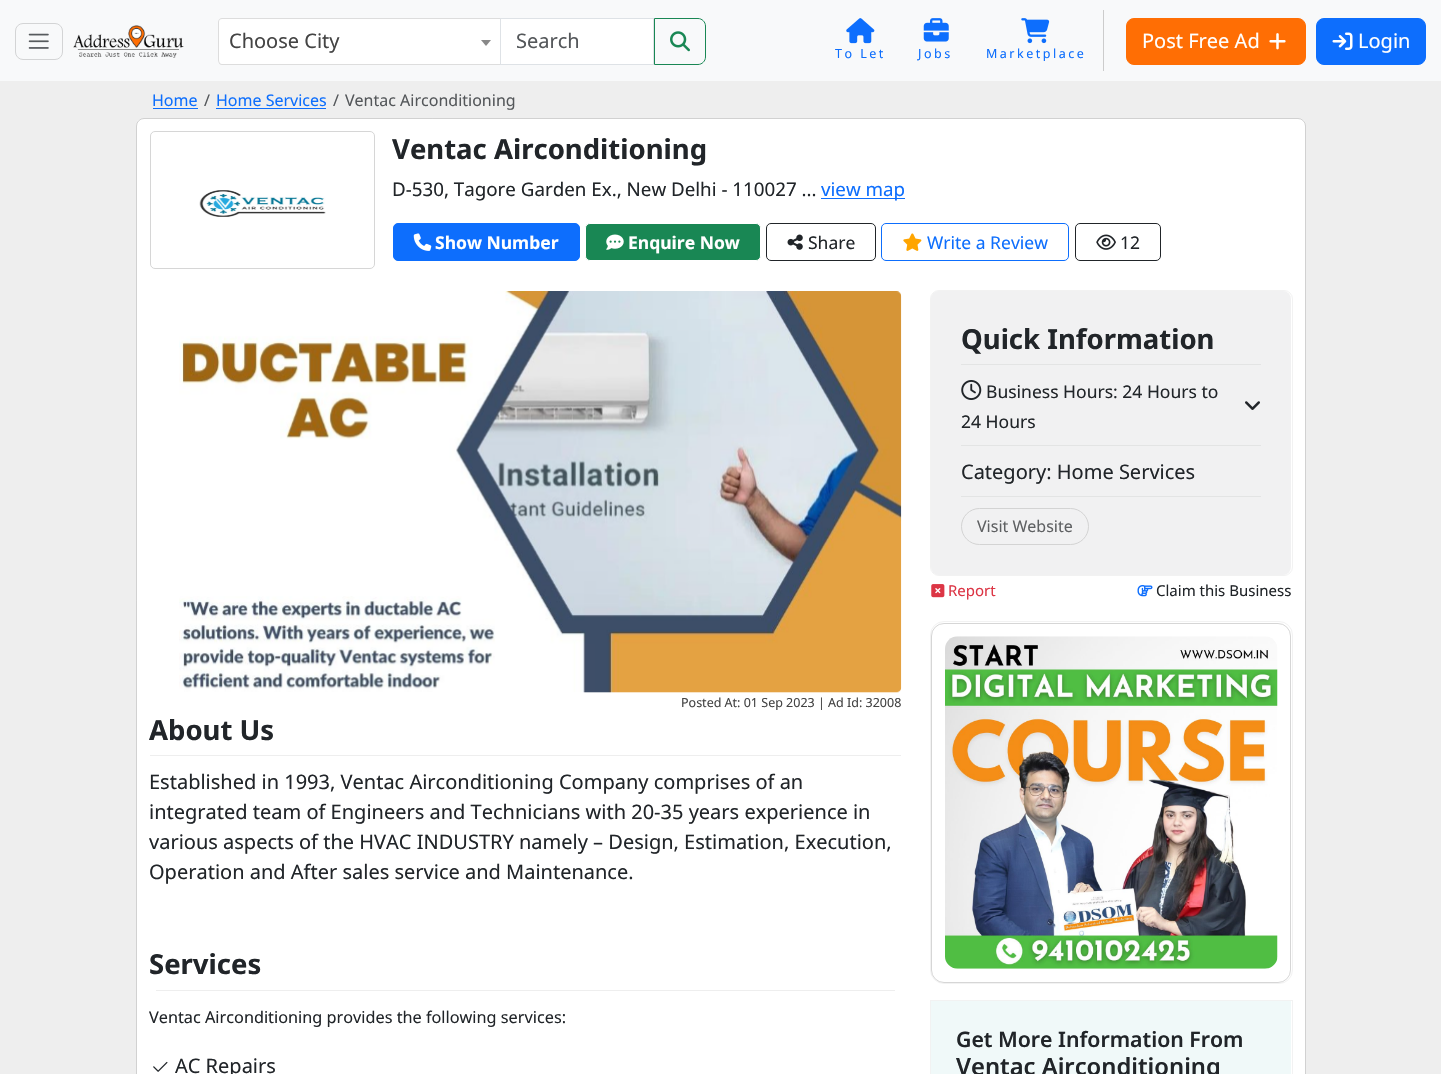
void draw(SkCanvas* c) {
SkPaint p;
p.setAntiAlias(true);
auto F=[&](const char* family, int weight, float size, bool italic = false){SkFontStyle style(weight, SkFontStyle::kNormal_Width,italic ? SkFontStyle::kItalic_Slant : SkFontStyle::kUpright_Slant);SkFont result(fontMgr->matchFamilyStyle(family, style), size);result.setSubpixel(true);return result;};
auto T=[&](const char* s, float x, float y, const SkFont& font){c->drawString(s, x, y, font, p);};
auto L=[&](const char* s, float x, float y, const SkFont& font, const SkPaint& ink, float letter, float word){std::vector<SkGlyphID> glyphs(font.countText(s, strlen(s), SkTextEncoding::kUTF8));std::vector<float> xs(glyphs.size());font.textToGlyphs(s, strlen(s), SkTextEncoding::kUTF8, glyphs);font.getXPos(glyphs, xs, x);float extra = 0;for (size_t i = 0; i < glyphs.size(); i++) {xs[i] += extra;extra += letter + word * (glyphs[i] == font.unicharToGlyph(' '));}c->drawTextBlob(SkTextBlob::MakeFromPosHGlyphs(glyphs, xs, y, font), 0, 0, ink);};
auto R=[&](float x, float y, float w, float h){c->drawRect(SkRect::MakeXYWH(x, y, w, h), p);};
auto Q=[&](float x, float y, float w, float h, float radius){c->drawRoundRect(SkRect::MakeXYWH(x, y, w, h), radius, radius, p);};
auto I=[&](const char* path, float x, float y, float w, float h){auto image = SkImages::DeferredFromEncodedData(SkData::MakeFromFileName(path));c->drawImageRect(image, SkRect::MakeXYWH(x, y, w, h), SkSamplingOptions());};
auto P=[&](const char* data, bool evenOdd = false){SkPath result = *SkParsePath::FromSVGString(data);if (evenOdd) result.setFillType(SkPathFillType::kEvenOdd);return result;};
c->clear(0xffeeeeee);
p.setColor(0xfff8f9fa);
R(0,0,1441,81);
p.setStroke(true);
p.setStrokeWidth(1);
p.setColor(0xffd3d4d5);
c->drawRoundRect(SkRect::MakeXYWH(15.5,23.5,47,36),7.5,7.5,p);
I("1.png",28,33,21,16);
I("2.png",73,25,111,33);
p.setStroke(false);
p.setColor(0xffffffff);
c->drawPath(P("M223 18h277v47h-277c-3 0-5-2-5-5v-37c0-3 2-5 5-5z"),p);
p.setColor(0xffdddddd);
c->drawPath(P("M222 18h278v47h-278c-2 0-4-2-4-5v-38c0-2 2-4 4-4zm0 1h278v45h-278c-2 0-3-2-3-4v-38c0-2 1-3 3-3z",true),p);
auto f1 = F("Noto Sans",400,20);
p.setColor(0xff444444);
T("Choose City",229,48,f1);
p.setColor(0xff888888);
c->drawPath(P("M481 40h10l-5 6z"),p);
p.setColor(0xffffffff);
c->drawRect(SkRect::MakeXYWH(500.5,18.5,153,46),p);
p.setStroke(true);
p.setColor(0xffdee2e6);
c->drawRect(SkRect::MakeXYWH(500.5,18.5,153,46),p);
p.setStroke(false);
p.setColor(0xff54575a);
T("Search",516,48,f1);
p.setStroke(true);
p.setColor(0xff198754);
c->drawPath(P("M654.5 18.5h43.5c4 0 7.5 3.5 7.5 7.5v31c0 4-3.5 7.5-7.5 7.5h-43.5z"),p);
I("3.png",670,31,20,21);
p.setStroke(false);
p.setColor(0xffff6e04);
c->drawRoundRect(SkRect::MakeXYWH(1126.5,18.5,179,46),7.5,7.5,p);
p.setStroke(true);
c->drawRoundRect(SkRect::MakeXYWH(1126.5,18.5,179,46),7.5,7.5,p);
p.setStroke(false);
p.setColor(0xffffffff);
T("Post Free Ad",1142,48,f1);
I("4.png",1269,33,17,17);
p.setColor(0xff0d6efd);
c->drawRoundRect(SkRect::MakeXYWH(1316.5,18.5,109,46),7.5,7.5,p);
p.setStroke(true);
c->drawRoundRect(SkRect::MakeXYWH(1316.5,18.5,109,46),7.5,7.5,p);
I("5.png",1332,32,21,18);
p.setStroke(false);
p.setColor(0xffffffff);
T("Login",1358,48,f1);
p.setColor(0xffcccccc);
R(1103,10,1,61);
I("6.png",846,18,29,26);
auto f2 = F("Noto Sans",400,12.5);
p.setColor(0xff0d6efd);
L("To Let",835,58,f2,p,2.5,0);
I("7.png",923,18,26,24);
L("Jobs",918,58,f2,p,2.5,0);
I("8.png",1021,18,29,26);
L("Marketplace",986,58,f2,p,2.5,0);
auto f3 = F("Noto Sans",400,16);
T("Home",152,106,f3);
R(153,108,45,1);
p.setColor(0xff54575a);
T("/",204,106,f3);
p.setColor(0xff0d6efd);
T("Home Services",216,106,f3);
R(216,108,110,1);
p.setColor(0xff54575a);
T("/",333,106,f3);
T("Ventac Airconditioning",345,106,f3);
p.setColor(0xffffffff);
Q(136,118,1170,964,8);
p.setStroke(true);
p.setColor(0x2e000000);
c->drawRoundRect(SkRect::MakeXYWH(136.5,118.5,1169,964),7.5,7.5,p);
p.setColor(0xffd6d6d6);
c->drawRoundRect(SkRect::MakeXYWH(150.5,131.5,224,137),4.5,4.5,p);
I("9.png",199,190,127,27);
auto f4 = F("Noto Sans",700,27.5);
p.setStroke(false);
p.setColor(0xff212529);
T("Ventac Airconditioning",392,159,f4);
auto f5 = F("Noto Sans",400,18.75);
T("D-530, Tagore Garden Ex., New Delhi - 110027 ...",392,196,f5);
p.setColor(0xff0d6efd);
R(821,198,84,1);
T("view map",821,196,f5);
c->drawRoundRect(SkRect::MakeXYWH(393.5,223.5,186,37),4.5,4.5,p);
p.setStroke(true);
c->drawRoundRect(SkRect::MakeXYWH(393.5,223.5,186,37),4.5,4.5,p);
I("10.png",413,233,19,18);
auto f6 = F("Noto Sans",700,17.5);
p.setStroke(false);
p.setColor(0xffffffff);
T("Show Number",435,249,f6);
p.setColor(0xff198754);
c->drawRoundRect(SkRect::MakeXYWH(585.5,223.5,175,37),4.5,4.5,p);
p.setStroke(true);
p.setColor(0xffffffff);
c->drawRoundRect(SkRect::MakeXYWH(585.5,223.5,175,37),4.5,4.5,p);
I("11.png",606,234,18,16);
p.setStroke(false);
T("Enquire Now",628,249,f6);
p.setStroke(true);
p.setColor(0xff212529);
c->drawRoundRect(SkRect::MakeXYWH(766.5,223.5,109,37),4.5,4.5,p);
I("12.png",787,234,16,16);
auto f7 = F("Noto Sans",400,17.5);
p.setStroke(false);
T("Share",808,249,f7);
p.setStroke(true);
p.setColor(0xff0d6efd);
c->drawRoundRect(SkRect::MakeXYWH(881.5,223.5,187,37),4.5,4.5,p);
I("13.png",903,233,19,18);
p.setStroke(false);
T("Write a Review",927,249,f7);
p.setStroke(true);
p.setColor(0xff212529);
c->drawRoundRect(SkRect::MakeXYWH(1075.5,223.5,85,37),4.5,4.5,p);
I("14.png",1096,234,20,16);
p.setStroke(false);
T("12",1120,249,f7);
I("15.png",179,291,723,402);
p.setColor(0xff444444);
T("Posted At: 01 Sep 2023 | Ad Id: 32008",681,707,f2);
p.setColor(0xff212529);
T("About Us",149,740,f4);
p.setColor(0xffeeeeee);
R(150,755,751,1);
p.setColor(0xff212529);
T("Established in 1993, Ventac Airconditioning Company comprises of an",149,789,f1);
T("integrated team of Engineers and Technicians with 20-35 years experience in",149,819,f1);
T("various aspects of the HVAC INDUSTRY namely – Design, Estimation, Execution,",149,849,f1);
T("Operation and After sales service and Maintenance.",149,879,f1);
T("Services",149,974,f4);
p.setColor(0xffeeeeee);
R(156,990,739,1);
auto f8 = F("Noto Sans",400,16.25);
p.setColor(0xff212529);
T("Ventac Airconditioning provides the following services:",149,1023,f8);
I("16.png",153,1061,15,11);
T("AC Repairs",175,1073,f1);
p.setStroke(true);
p.setColor(0xfff2f2f2);
c->drawRoundRect(SkRect::MakeXYWH(930.5,290.5,362,285),8.5,8.5,p);
p.setStroke(false);
p.setColor(0xb8ebeced);
Q(931,291,360,284,8);
p.setColor(0xff212529);
T("Quick Information",961,349,f4);
p.setColor(0xffe3e4e4);
R(961,364,300,1);
I("17.png",961,380,21,20);
p.setColor(0xff212529);
T("Business Hours: 24 Hours to",986,398,f7);
T("24 Hours",961,428,f7);
I("18.png",1245,401,15,9);
p.setColor(0xffe3e4e4);
R(961,445,300,1);
p.setColor(0xff212529);
T("Category: Home Services",961,479,f1);
p.setColor(0xffe3e4e4);
R(961,496,300,1);
p.setStroke(true);
p.setColor(0xffd3d3d3);
c->drawRoundRect(SkRect::MakeXYWH(961.5,508.5,127,36),18,18,p);
p.setStroke(false);
p.setColor(0xff5e6062);
T("Visit Website",977,532,f3);
I("19.png",931,584,14,14);
auto f9 = F("Noto Sans",400,15);
p.setColor(0xffdc3545);
T("Report",948,596,f9);
I("20.png",1137,585,16,12);
p.setColor(0xff212529);
T("Claim this Business",1156,596,f9);
p.setStroke(true);
p.setColor(0xfff2f2f2);
c->drawRoundRect(SkRect::MakeXYWH(930.5,621.5,362,362),13.5,13.5,p);
p.setStroke(false);
p.setColor(0xffffffff);
c->drawRoundRect(SkRect::MakeXYWH(931.5,623.5,359,359),12.5,12.5,p);
p.setStroke(true);
p.setColor(0xffd6d6d6);
c->drawRoundRect(SkRect::MakeXYWH(931.5,623.5,359,359),12.5,12.5,p);
I("21.png",945,636,333,333);
p.setColor(0xfff2f2f2);
c->drawRect(SkRect::MakeXYWH(930.5,1000.5,362,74),p);
p.setStroke(false);
p.setColor(0xfff0f9f9);
R(931,1001,360,73);
auto f10 = F("Noto Sans",600,21.25);
p.setColor(0xff212529);
T("Get More Information From",956,1047,f10);
auto f11 = F("Noto Sans",600,23.75);
T("Ventac Airconditioning",956,1075,f11);
}
